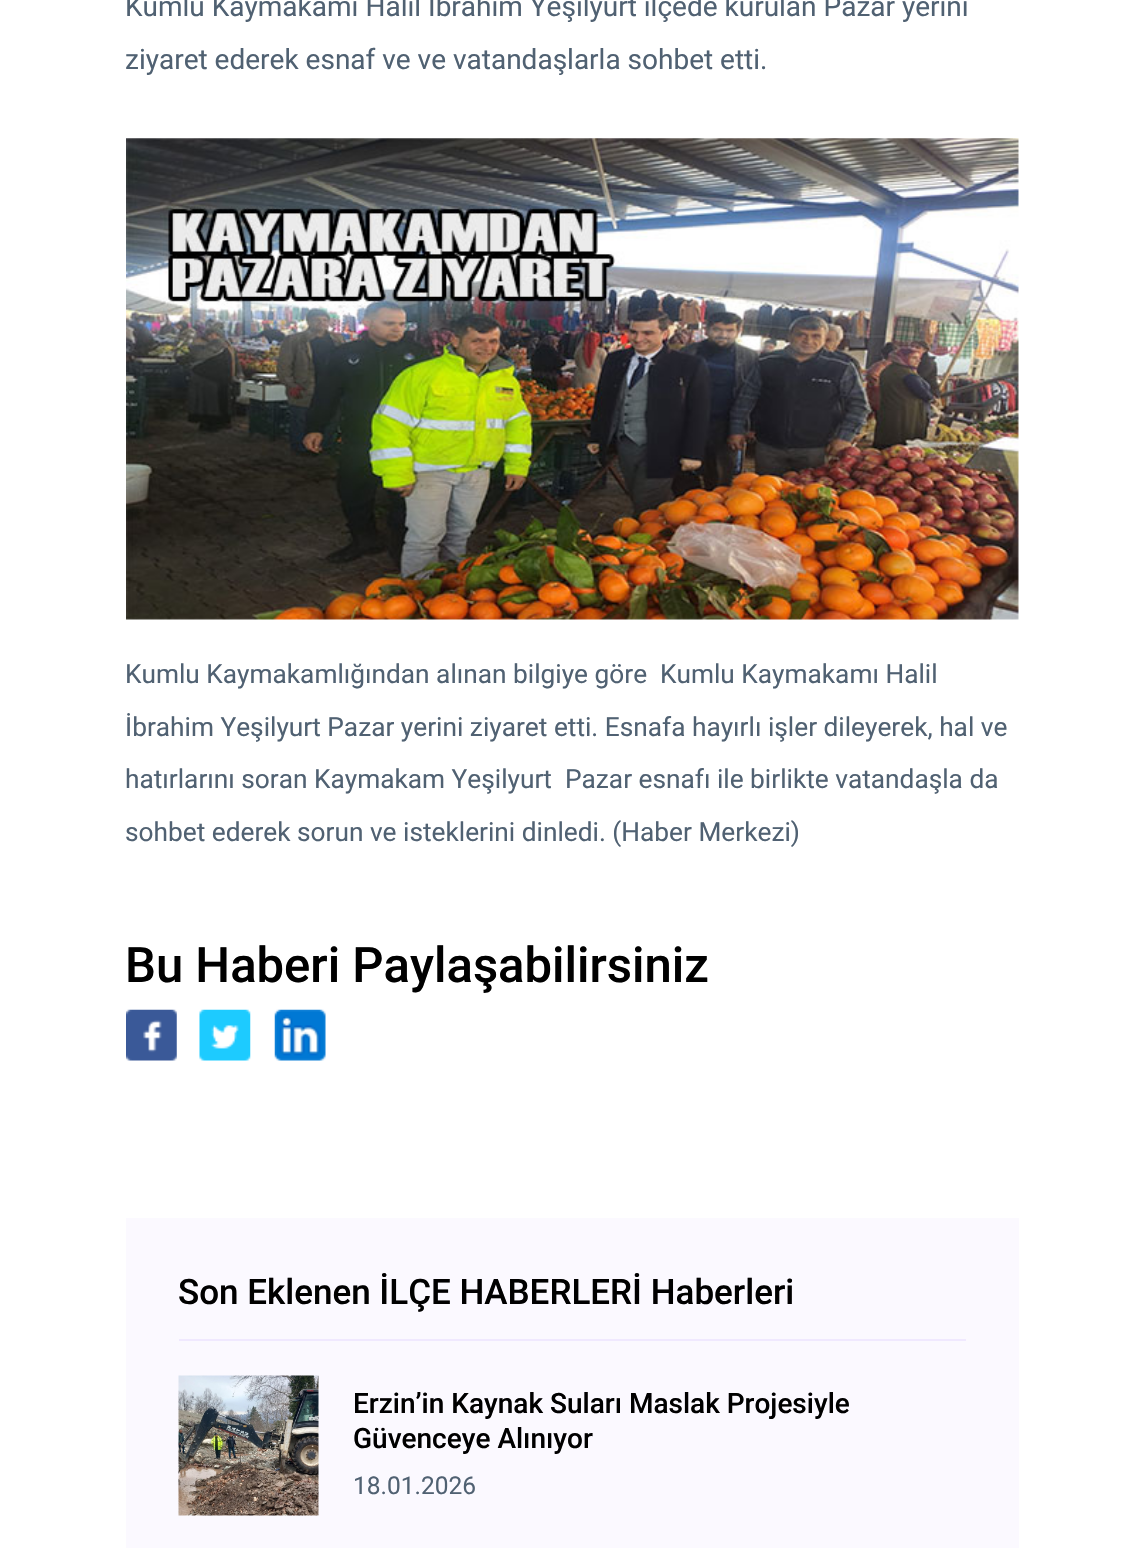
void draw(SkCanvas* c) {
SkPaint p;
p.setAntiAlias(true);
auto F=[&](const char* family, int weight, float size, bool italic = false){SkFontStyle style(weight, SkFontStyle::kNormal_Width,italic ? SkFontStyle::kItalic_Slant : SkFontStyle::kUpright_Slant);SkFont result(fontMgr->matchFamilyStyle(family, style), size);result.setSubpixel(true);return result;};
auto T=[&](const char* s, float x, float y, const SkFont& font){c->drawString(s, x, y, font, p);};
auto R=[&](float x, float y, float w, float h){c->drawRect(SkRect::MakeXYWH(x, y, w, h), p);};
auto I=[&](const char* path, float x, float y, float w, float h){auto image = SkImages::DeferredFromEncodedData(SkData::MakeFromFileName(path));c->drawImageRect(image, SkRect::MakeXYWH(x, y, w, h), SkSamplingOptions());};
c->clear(0xffffffff);
auto f1 = F("Roboto",400,28);
p.setColor(0xff506172);
T("Kumlu Kaymakamı Halil İbrahim Yeşilyurt ilçede kurulan Pazar yerini",125,16,f1);
T("ziyaret ederek esnaf ve ve vatandaşlarla sohbet etti.",125,69,f1);
I("1.png",126,138,893,482);
auto f2 = F("Roboto",400,26.25);
T("Kumlu Kaymakamlığından alınan bilgiye göre",125,683,f2);
T("Kumlu Kaymakamı Halil",660,683,f2);
T("İbrahim Yeşilyurt Pazar yerini ziyaret etti. Esnafa hayırlı işler dileyerek, hal ve",125,736,f2);
T("hatırlarını soran Kaymakam Yeşilyurt",125,788,f2);
T("Pazar esnafı ile birlikte vatandaşla da",565,788,f2);
T("sohbet ederek sorun ve isteklerini dinledi. (Haber Merkezi)",125,841,f2);
auto f3 = F("Roboto",500,49);
p.setColor(0xff000000);
T("Bu Haberi Paylaşabilirsiniz",125,982,f3);
I("2.png",126,1009,51,52);
I("3.png",199,1009,52,52);
I("4.png",274,1009,52,52);
p.setColor(0xfffbf9ff);
R(126,1218,893,330);
auto f4 = F("Roboto",500,35);
p.setColor(0xff000000);
T("Son Eklenen İLÇE HABERLERİ Haberleri",178,1304,f4);
p.setColor(0xfff0e9ff);
R(179,1339,787,2);
I("5.png",178,1375,141,141);
auto f5 = F("Roboto",500,28);
p.setColor(0xff000000);
T("Erzin’in Kaynak Suları Maslak Projesiyle",353,1413,f5);
T("Güvenceye Alınıyor",353,1448,f5);
auto f6 = F("Roboto",400,24.5);
p.setColor(0xff506172);
T("18.01.2026",353,1494,f6);
}
